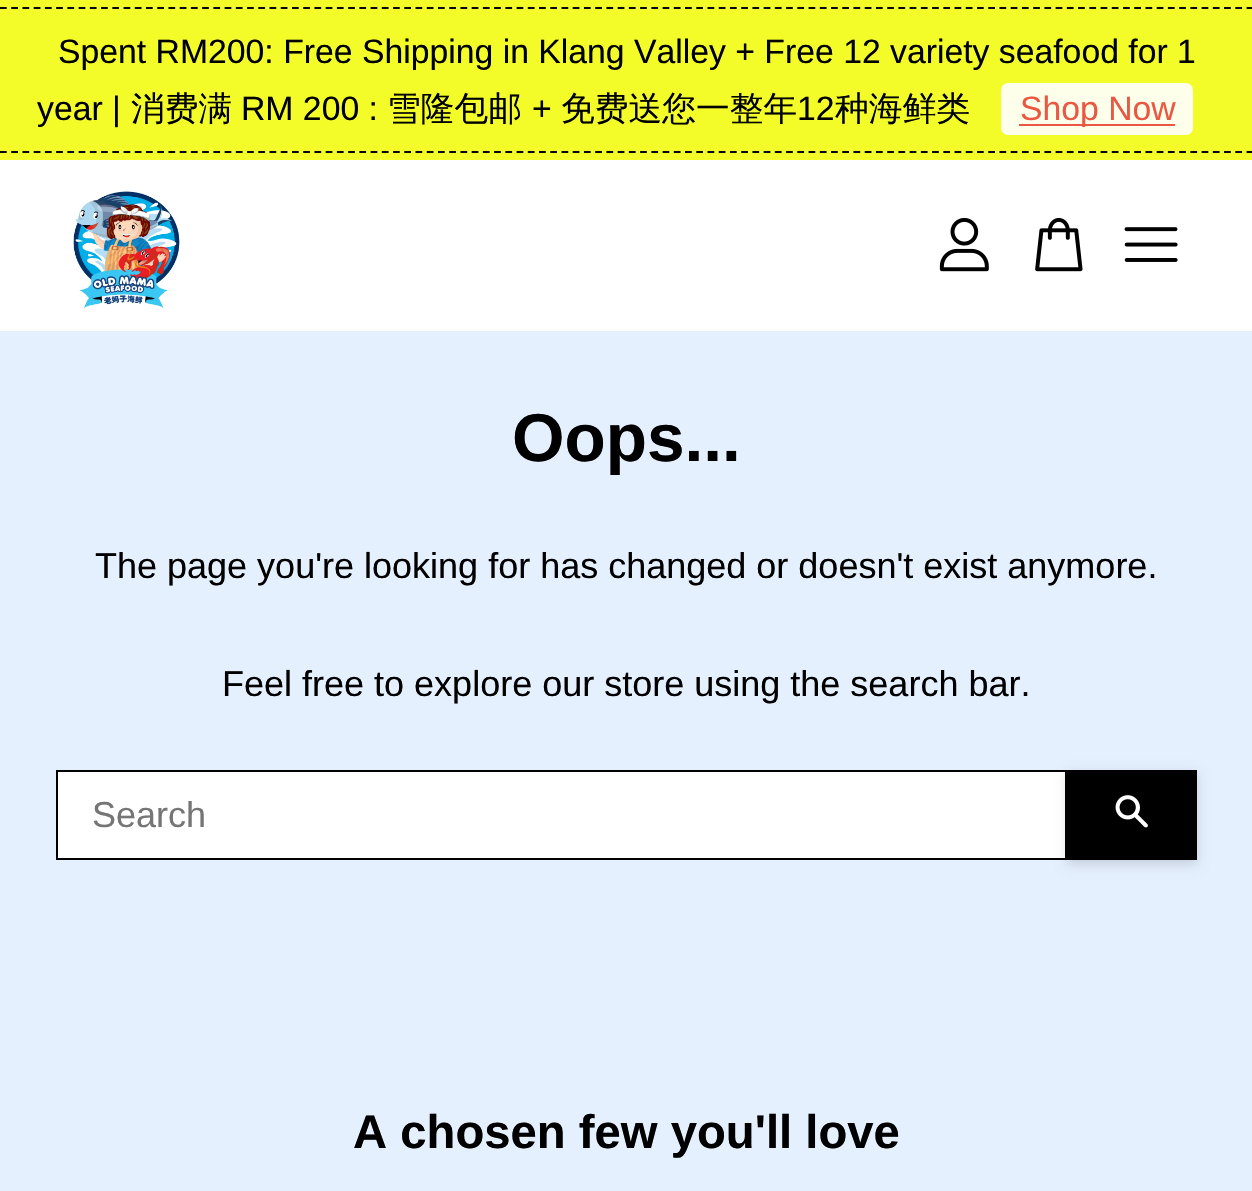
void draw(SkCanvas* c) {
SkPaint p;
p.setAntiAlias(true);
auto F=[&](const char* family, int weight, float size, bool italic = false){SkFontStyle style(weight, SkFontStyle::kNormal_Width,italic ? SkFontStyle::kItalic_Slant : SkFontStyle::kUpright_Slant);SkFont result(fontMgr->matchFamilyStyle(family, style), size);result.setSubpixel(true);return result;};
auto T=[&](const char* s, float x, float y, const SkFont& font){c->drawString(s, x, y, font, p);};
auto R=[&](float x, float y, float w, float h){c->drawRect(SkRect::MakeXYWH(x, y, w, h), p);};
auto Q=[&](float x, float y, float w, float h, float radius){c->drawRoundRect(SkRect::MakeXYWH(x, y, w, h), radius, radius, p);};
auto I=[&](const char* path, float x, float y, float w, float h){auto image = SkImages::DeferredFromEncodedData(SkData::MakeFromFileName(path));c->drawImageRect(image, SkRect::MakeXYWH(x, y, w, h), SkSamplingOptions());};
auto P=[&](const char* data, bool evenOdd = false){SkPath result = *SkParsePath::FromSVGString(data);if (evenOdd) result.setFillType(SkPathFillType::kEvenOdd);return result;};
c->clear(0xffe5f0ff);
p.setColor(0xfff3fc28);
R(0,0,1252,160);
p.setStroke(true);
p.setStrokeWidth(2.2);
p.setColor(0xff050505);
p.setPathEffect(SkDashPathEffect::Make({{6.75f,4.48f}}, 0));
c->drawPath(P("M0 8h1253"),p);
p.setPathEffect(nullptr);
p.setPathEffect(SkDashPathEffect::Make({{6.75f,4.48f}}, 0));
c->drawPath(P("M0 152h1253"),p);
p.setPathEffect(nullptr);
auto f1 = F("Liberation Sans",400,33.75);
p.setStroke(false);
p.setColor(0xff000000);
T("Spent RM200: Free Shipping in Klang Valley + Free 12 variety seafood for 1",58,63,f1);
T("year |",37,120,f1);
auto f2 = F("WenQuanYi Zen Hei",500,33.75);
T("消费满",131,120,f2);
T("RM 200 :",241,120,f1);
T("雪隆包邮",387,120,f2);
T("+",532,120,f1);
T("免费送您一整年",561,120,f2);
T("12",797,120,f1);
T("种海鲜类",835,120,f2);
p.setColor(0xfffeffea);
Q(1001,83,192,52,7);
p.setColor(0xffea5742);
R(1019,124,156,2);
T("Shop Now",1020,120,f1);
p.setColor(0xffffffff);
R(0,160,1252,171);
I("1.png",73,191,107,118);
I("2.png",939,217,50,55);
I("3.png",1035,217,48,55);
I("4.png",1124,227,54,35);
auto f3 = F("Liberation Sans",700,67.5);
p.setColor(0xff000000);
T("Oops...",512,461,f3);
auto f4 = F("Liberation Sans",400,36);
T("The page you're looking for has changed or doesn't exist anymore.",95,578,f4);
T("Feel free to explore our store using the search bar.",222,696,f4);
p.setColor(0xffffffff);
c->drawRect(SkRect::MakeXYWH(57,771,1009,88),p);
p.setStroke(true);
p.setStrokeWidth(2);
p.setColor(0xff000000);
c->drawRect(SkRect::MakeXYWH(57,771,1009,88),p);
p.setStroke(false);
p.setColor(0xff757575);
T("Search",92,827,f4);
p.setColor(0x26000000);
p.setMaskFilter(SkMaskFilter::MakeBlur(kNormal_SkBlurStyle, 5.5));
c->drawRect(SkRect::MakeXYWH(1067,774,130,90),p);
p.setMaskFilter(nullptr);
p.setColor(0xff000000);
R(1067,770,130,90);
I("5.png",1115,795,33,33);
auto f5 = F("Liberation Sans",700,47.25);
T("A chosen few you'll love",353,1148,f5);
}
